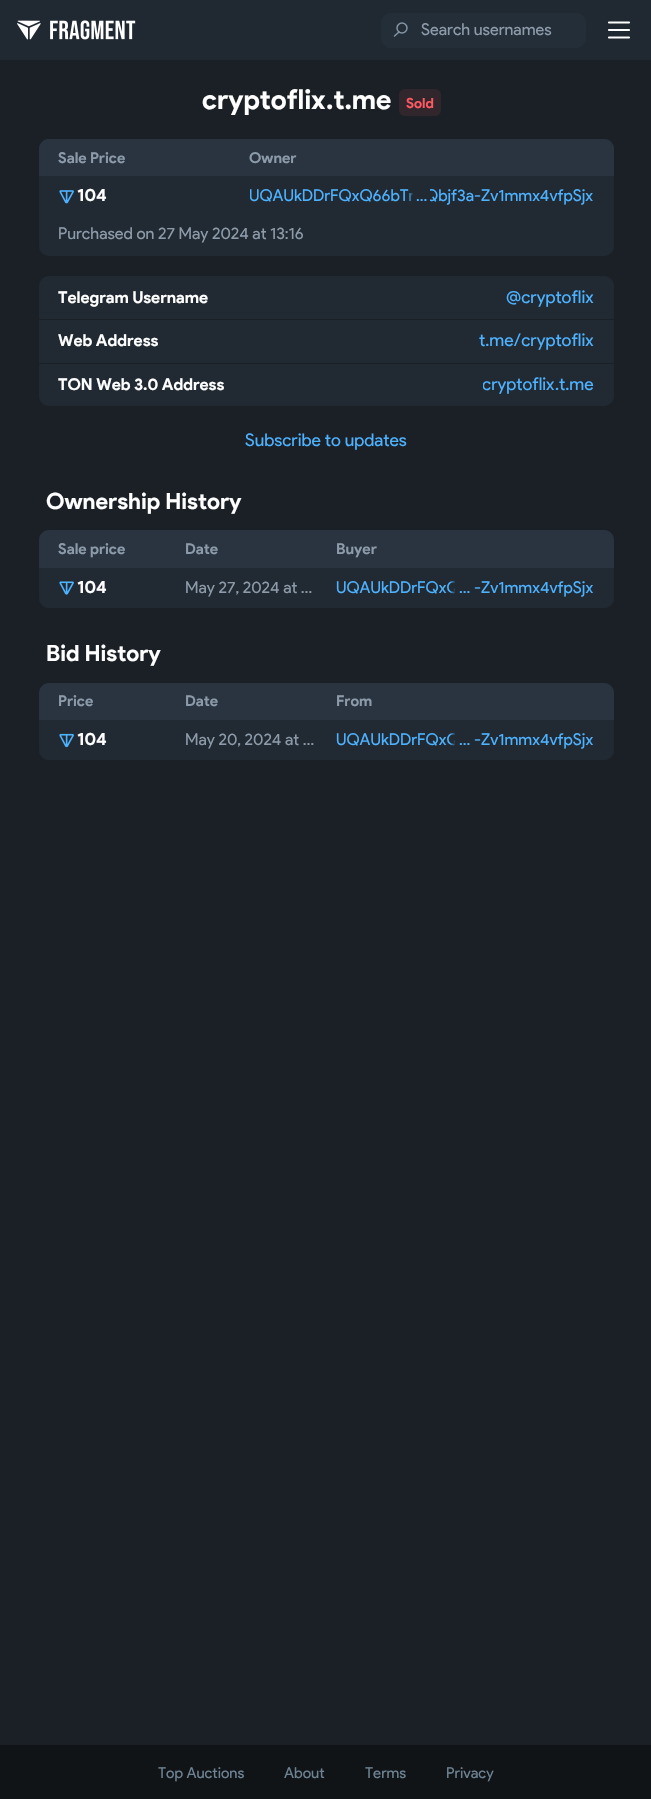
void draw(SkCanvas* c) {
SkPaint p;
p.setAntiAlias(true);
auto F=[&](const char* family, int weight, float size, bool italic = false){SkFontStyle style(weight, SkFontStyle::kNormal_Width,italic ? SkFontStyle::kItalic_Slant : SkFontStyle::kUpright_Slant);SkFont result(fontMgr->matchFamilyStyle(family, style), size);result.setSubpixel(true);return result;};
auto T=[&](const char* s, float x, float y, const SkFont& font){c->drawString(s, x, y, font, p);};
auto R=[&](float x, float y, float w, float h){c->drawRect(SkRect::MakeXYWH(x, y, w, h), p);};
auto Q=[&](float x, float y, float w, float h, float radius){c->drawRoundRect(SkRect::MakeXYWH(x, y, w, h), radius, radius, p);};
auto I=[&](const char* path, float x, float y, float w, float h){auto image = SkImages::DeferredFromEncodedData(SkData::MakeFromFileName(path));c->drawImageRect(image, SkRect::MakeXYWH(x, y, w, h), SkSamplingOptions());};
auto P=[&](const char* data, bool evenOdd = false){SkPath result = *SkParsePath::FromSVGString(data);if (evenOdd) result.setFillType(SkPathFillType::kEvenOdd);return result;};
c->clear(0xff1a2026);
p.setColor(0xff202932);
R(0,0,651,60);
I("1.png",17,20,24,20);
I("2.png",50,20,86,20);
p.setColor(0xff242e38);
Q(381,13,205,35,10);
p.setStroke(true);
p.setStrokeWidth(1.5);
p.setColor(0xff8494a3);
c->drawCircle(402,28,5,p);
p.setStrokeCap(SkPaint::kRound_Cap);
c->drawPath(P("M394.5 36l4.5-4"),p);
auto f1 = F("Product Sans",400,16.25);
p.setStroke(false);
p.setColor(0xff8c9aa9);
T("Search usernames",421,35,f1);
p.setStroke(true);
p.setStrokeWidth(2.2);
p.setColor(0xffffffff);
c->drawPath(P("M609 30h20m-20-7.5h20m-20 15h20"),p);
auto f2 = F("Product Sans",700,27.5);
p.setStroke(false);
T("cryptoflix",202,109,f2);
T(".t.me",326,109,f2);
p.setColor(0xff31262c);
Q(399,89,42,27,6);
auto f3 = F("Product Sans",700,14);
p.setColor(0xffff5863);
T("Sold",406,108,f3);
p.setColor(0xff212a33);
Q(39,139,575,117,10);
p.setColor(0xff293440);
c->drawPath(P("M49 139h191v37h-201v-27c0-5.5 4.5-10 10-10z"),p);
auto f4 = F("Product Sans",700,15);
p.setColor(0xff8c9aa9);
T("Sale Price",58,163,f4);
p.setColor(0xff293440);
c->drawPath(P("M240 139h364c5.5 0 10 4.5 10 10v27h-374z"),p);
p.setColor(0xff8c9aa9);
T("Owner",249,163,f4);
I("3.png",59,190,15,14);
auto f5 = F("Product Sans",700,17.5);
p.setColor(0xffffffff);
T("104",77,201,f5);
c->save();
c->clipRect(SkRect::MakeXYWH(250,186,163,20));
p.setColor(0xff4db2ff);
T("UQAUkDDrFQxQ66bTr",249,201,f1);
c->restore();
{
const SkColor colors[] = {0x00212a33,0xff212a33,0x00212a33};
const float stops[] = {0,.21,.21};
const SkPoint ends[] = {{435,196}, {408,196}};
p.setShader(SkGradientShader::MakeLinear(ends, colors, stops, 3, SkTileMode::kClamp));
p.setAlpha(255);
}
R(430,186,5,20);
{
const SkColor colors[] = {0x00212a33,0xff212a33,0x00212a33};
const float stops[] = {0,.21,.21};
const SkPoint ends[] = {{408,196}, {435,196}};
p.setShader(SkGradientShader::MakeLinear(ends, colors, stops, 3, SkTileMode::kClamp));
p.setAlpha(255);
}
R(408,186,5,20);
p.setShader(nullptr);
p.setColor(0xff4db2ff);
T("...",416,201,f1);
c->save();
c->clipRect(SkRect::MakeXYWH(430,186,164,20));
T("Qbjf3a-Zv1mmx4vfpSjx",425,201,f1);
c->restore();
p.setColor(0xff8c9aa9);
T("Purchased on 27 May 2024 at 13:16",58,239,f1);
p.setColor(0xff212a33);
Q(39,276,575,130,10);
auto f6 = F("Product Sans",700,16.25);
p.setColor(0xffffffff);
T("Telegram Username",58,303,f6);
auto f7 = F("Product Sans",400,17.5);
p.setColor(0xff4db2ff);
T("@cryptoflix",506,303,f7);
p.setColor(0xff1a2026);
R(39,319,575,1);
p.setColor(0xffffffff);
T("Web Address",58,346,f6);
p.setColor(0xff4db2ff);
T("t.me/cryptoflix",479,346,f7);
p.setColor(0xff1a2026);
R(39,363,575,1);
p.setColor(0xffffffff);
T("TON Web 3.0 Address",58,390,f6);
c->save();
c->clipRect(SkRect::MakeXYWH(483,374,72,22));
p.setColor(0xff4db2ff);
T("cryptoflix",482,390,f7);
c->restore();
T(".t.me",555,390,f7);
T("Subscribe to updates",245,446,f7);
auto f8 = F("Product Sans",700,22.5);
p.setColor(0xffffffff);
T("Ownership History",46,509,f8);
p.setColor(0xff293440);
c->drawPath(P("M49 530h126v38h-136v-28c0-5.5 4.5-10 10-10z"),p);
p.setColor(0xff8c9aa9);
T("Sale price",58,554,f4);
p.setColor(0xff293440);
R(175,530,150,38);
p.setColor(0xff8c9aa9);
T("Date",185,554,f4);
p.setColor(0xff293440);
c->drawPath(P("M325 530h279c5.5 0 10 4.5 10 10v28h-289z"),p);
p.setColor(0xff8c9aa9);
T("Buyer",336,554,f4);
p.setColor(0xff212a33);
c->drawPath(P("M39 568h136v40h-126c-5.5 0-10-4.5-10-10z"),p);
I("4.png",59,581,15,14);
p.setColor(0xffffffff);
T("104",77,593,f5);
p.setColor(0xff212a33);
R(175,568,150,40);
p.setColor(0xff8c9aa9);
T("May 27, 2024 at …",185,593,f1);
p.setColor(0xff212a33);
c->drawPath(P("M325 568h289v30c0 5.5-4.5 10-10 10h-279z"),p);
c->save();
c->clipRect(SkRect::MakeXYWH(335,578,120,20));
p.setColor(0xff4db2ff);
T("UQAUkDDrFQxQ",336,593,f1);
c->restore();
{
const SkColor colors[] = {0x00212a33,0xff212a33,0x00212a33};
const float stops[] = {0,.2,.2};
const SkPoint ends[] = {{479,588}, {450,588}};
p.setShader(SkGradientShader::MakeLinear(ends, colors, stops, 3, SkTileMode::kClamp));
p.setAlpha(255);
}
R(474,587,5,2);
{
const SkColor colors[] = {0x00212a33,0xff212a33,0x00212a33};
const float stops[] = {0,.2,.2};
const SkPoint ends[] = {{450,588}, {479,588}};
p.setShader(SkGradientShader::MakeLinear(ends, colors, stops, 3, SkTileMode::kClamp));
p.setAlpha(255);
}
R(450,578,5,20);
p.setShader(nullptr);
p.setColor(0xff4db2ff);
T("...",459,593,f1);
T("-Zv1mmx4vfpSjx",474,593,f1);
p.setColor(0xffffffff);
T("Bid History",46,661,f8);
p.setColor(0xff293440);
c->drawPath(P("M49 683h126v37h-136v-27c0-5.5 4.5-10 10-10z"),p);
p.setColor(0xff8c9aa9);
T("Price",58,706,f4);
p.setColor(0xff293440);
R(175,683,150,37);
p.setColor(0xff8c9aa9);
T("Date",185,706,f4);
p.setColor(0xff293440);
c->drawPath(P("M325 683h279c5.5 0 10 4.5 10 10v27h-289z"),p);
p.setColor(0xff8c9aa9);
T("From",336,706,f4);
p.setColor(0xff212a33);
c->drawPath(P("M39 720h136v40h-126c-5.5 0-10-4.5-10-10z"),p);
I("5.png",59,733,15,15);
p.setColor(0xffffffff);
T("104",77,745,f5);
p.setColor(0xff212a33);
R(175,720,150,40);
p.setColor(0xff8c9aa9);
T("May 20, 2024 at …",185,745,f1);
p.setColor(0xff212a33);
c->drawPath(P("M325 720h289v30c0 5.5-4.5 10-10 10h-279z"),p);
c->save();
c->clipRect(SkRect::MakeXYWH(335,730,120,20));
p.setColor(0xff4db2ff);
T("UQAUkDDrFQxQ",336,745,f1);
c->restore();
{
const SkColor colors[] = {0x00212a33,0xff212a33,0x00212a33};
const float stops[] = {0,.2,.2};
const SkPoint ends[] = {{479,740}, {450,740}};
p.setShader(SkGradientShader::MakeLinear(ends, colors, stops, 3, SkTileMode::kClamp));
p.setAlpha(255);
}
R(474,739,5,2);
{
const SkColor colors[] = {0x00212a33,0xff212a33,0x00212a33};
const float stops[] = {0,.2,.2};
const SkPoint ends[] = {{450,740}, {479,740}};
p.setShader(SkGradientShader::MakeLinear(ends, colors, stops, 3, SkTileMode::kClamp));
p.setAlpha(255);
}
R(450,730,5,20);
p.setShader(nullptr);
p.setColor(0xff4db2ff);
T("...",459,745,f1);
T("-Zv1mmx4vfpSjx",474,745,f1);
p.setColor(0xff111417);
R(0,1745,651,54);
auto f9 = F("Product Sans",400,15);
p.setColor(0xff6d8394);
T("Top Auctions",158,1778,f9);
T("About",284,1778,f9);
T("Terms",365,1778,f9);
T("Privacy",446,1778,f9);
}
